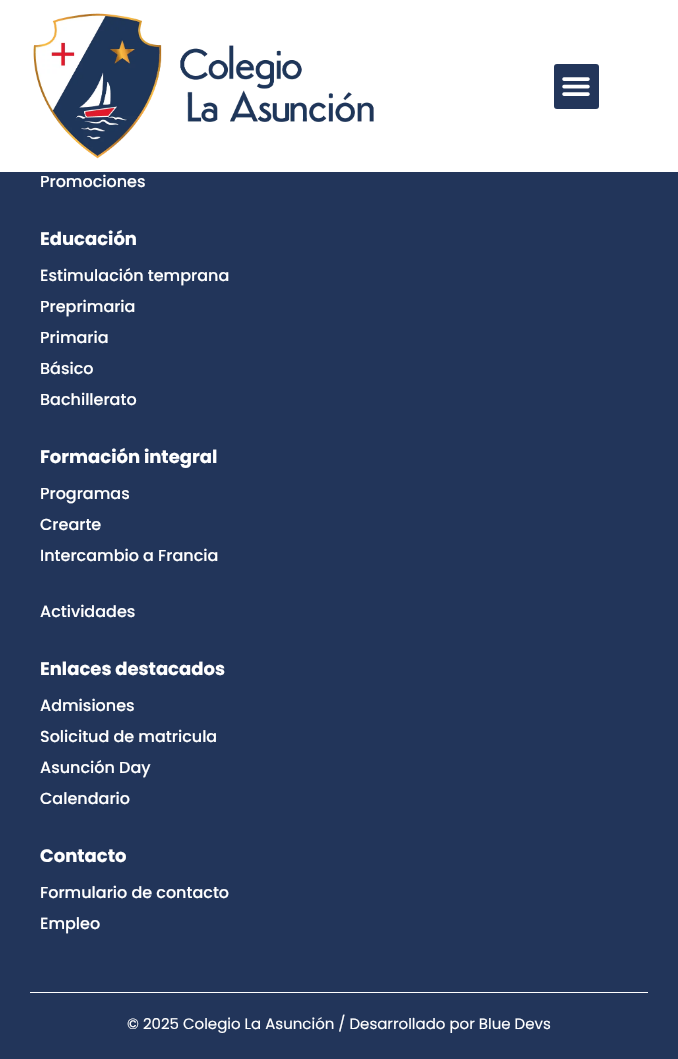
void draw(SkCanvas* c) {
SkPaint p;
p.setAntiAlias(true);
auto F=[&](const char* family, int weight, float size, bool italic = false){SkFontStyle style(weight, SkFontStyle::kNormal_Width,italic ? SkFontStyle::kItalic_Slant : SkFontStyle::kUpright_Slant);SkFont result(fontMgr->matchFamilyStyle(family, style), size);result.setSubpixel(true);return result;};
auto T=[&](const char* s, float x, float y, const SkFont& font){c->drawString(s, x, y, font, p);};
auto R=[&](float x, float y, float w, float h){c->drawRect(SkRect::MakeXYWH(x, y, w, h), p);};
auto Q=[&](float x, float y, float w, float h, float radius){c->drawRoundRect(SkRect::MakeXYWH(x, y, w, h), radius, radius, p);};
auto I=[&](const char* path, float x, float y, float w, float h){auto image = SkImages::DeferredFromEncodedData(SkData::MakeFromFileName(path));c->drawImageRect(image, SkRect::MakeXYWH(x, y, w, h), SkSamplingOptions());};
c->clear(0xff22355a);
p.setColor(0xffffffff);
R(0,0,678,172);
I("1.png",33,13,341,146);
p.setColor(0xff22355a);
Q(554,64,45,45,3);
I("2.png",562,77,28,19);
auto f1 = F("Poppins",500,16);
p.setColor(0xffffffff);
T("Promociones",40,187,f1);
auto f2 = F("Poppins",700,18);
T("Educación",40,245,f2);
T("Estimulación temprana",40,281,f1);
T("Preprimaria",40,312,f1);
T("Primaria",40,343,f1);
T("Básico",40,374,f1);
T("Bachillerato",40,405,f1);
T("Formación integral",40,463,f2);
T("Programas",40,499,f1);
T("Crearte",40,530,f1);
T("Intercambio a Francia",40,561,f1);
T("Actividades",40,617,f1);
T("Enlaces destacados",40,675,f2);
T("Admisiones",40,711,f1);
T("Solicitud de matricula",40,742,f1);
T("Asunción Day",40,773,f1);
T("Calendario",40,804,f1);
T("Contacto",40,862,f2);
T("Formulario de contacto",40,898,f1);
T("Empleo",40,929,f1);
R(30,992,618,1);
auto f3 = F("Poppins",400,15);
T("© 2025 Colegio La Asunción / Desarrollado por Blue Devs",127,1029,f3);
}
